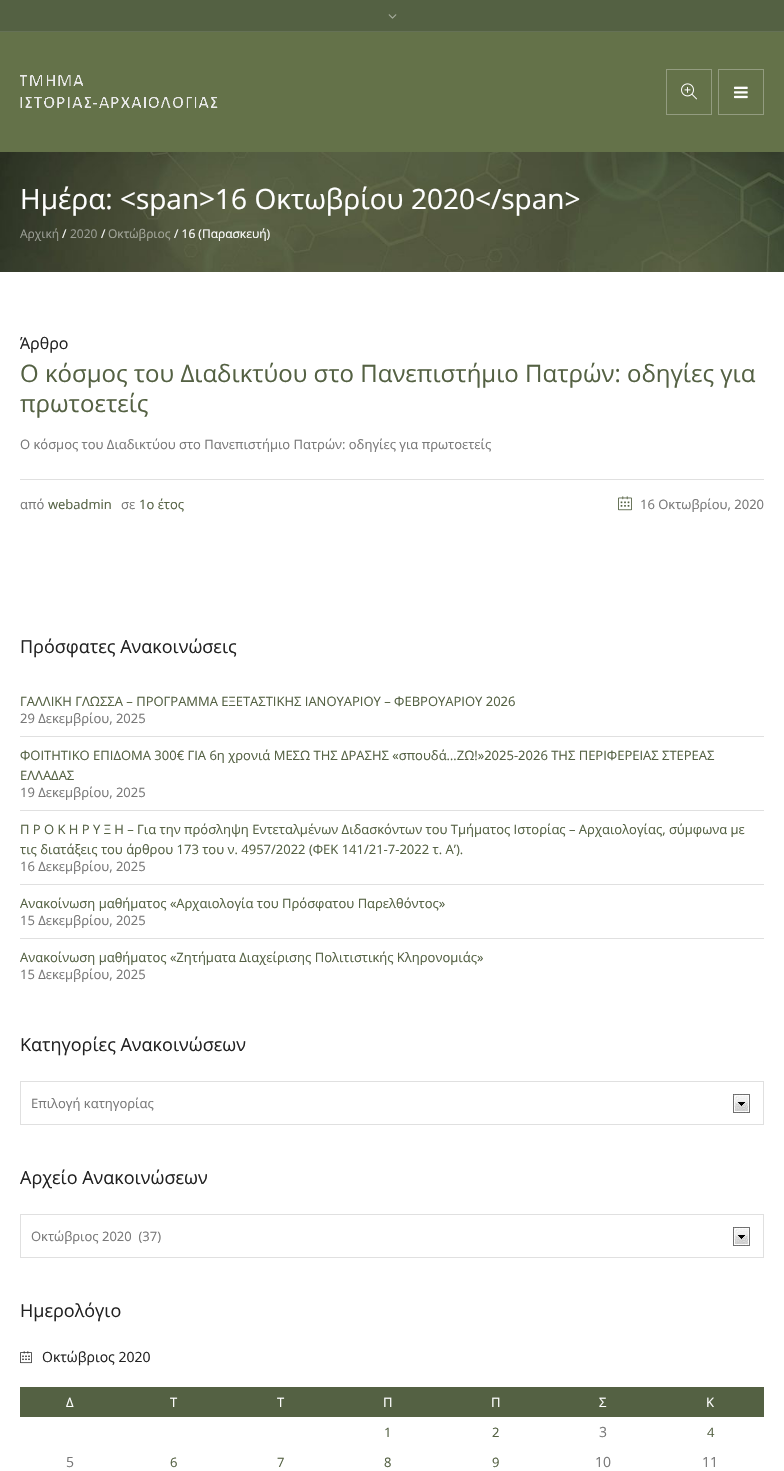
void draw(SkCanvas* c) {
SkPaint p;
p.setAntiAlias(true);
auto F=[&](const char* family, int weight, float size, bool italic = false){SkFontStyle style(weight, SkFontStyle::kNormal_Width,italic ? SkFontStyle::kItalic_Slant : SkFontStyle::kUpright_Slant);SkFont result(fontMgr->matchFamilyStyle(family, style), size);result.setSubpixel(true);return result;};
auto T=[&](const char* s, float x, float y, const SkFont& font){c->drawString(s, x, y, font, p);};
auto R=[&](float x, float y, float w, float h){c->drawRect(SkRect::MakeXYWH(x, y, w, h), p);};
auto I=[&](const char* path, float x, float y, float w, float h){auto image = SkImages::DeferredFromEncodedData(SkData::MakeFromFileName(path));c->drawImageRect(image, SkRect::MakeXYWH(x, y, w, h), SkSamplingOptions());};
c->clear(0xffffffff);
I("5.png",0,152,784,120);
p.setColor(0x1a000000);
p.setMaskFilter(SkMaskFilter::MakeBlur(kNormal_SkBlurStyle, 5));
c->drawRect(SkRect::MakeXYWH(732,100,52,52),p);
p.setMaskFilter(nullptr);
p.setColor(0xff546143);
R(0,0,784,31);
p.setColor(0xff657156);
R(0,31,784,1);
I("1.png",388,14,9,5);
p.setColor(0xff647249);
R(0,32,784,120);
I("2.png",20,75,198,33);
p.setStroke(true);
p.setStrokeWidth(1);
p.setColor(0xff939c80);
c->drawRect(SkRect::MakeXYWH(666.5,69.5,45,45),p);
I("3.png",681,83,16,17);
c->drawRect(SkRect::MakeXYWH(718.5,69.5,45,45),p);
I("4.png",734,86,14,13);
auto f1 = F("Open Sans",400,28);
p.setStroke(false);
p.setColor(0xffffffff);
T("Ημέρα: <span>16 Οκτωβρίου 2020</span>",20,209,f1);
auto f2 = F("Open Sans",400,12);
p.setColor(0xff9b9e95);
T("Αρχική",20,238,f2);
p.setColor(0xffffffff);
T("/",62,238,f2);
p.setColor(0xff9b9e95);
T("2020",70,238,f2);
p.setColor(0xffffffff);
T("/",101,238,f2);
p.setColor(0xffa4a79b);
T("Οκτώβριος",108,238,f2);
p.setColor(0xffffffff);
T("/ 16 (Παρασκευή)",174,238,f2);
auto f3 = F("Open Sans",400,16);
p.setColor(0xff222222);
T("Άρθρο",20,349,f3);
auto f4 = F("Open Sans",400,24);
p.setColor(0xff546143);
T("Ο κόσμος του Διαδικτύου στο Πανεπιστήμιο Πατρών: οδηγίες για",20,382,f4);
T("πρωτοετείς",20,412,f4);
auto f5 = F("Open Sans",400,13);
p.setColor(0xff787878);
T("Ο κόσμος του Διαδικτύου στο Πανεπιστήμιο Πατρών: οδηγίες για πρωτοετείς",20,449,f5);
p.setColor(0xffe0e0e0);
R(20,479,744,1);
p.setColor(0xff787878);
T("από",20,509,f5);
p.setColor(0xff546143);
T("webadmin",48,509,f5);
p.setColor(0xff787878);
T("σε",121,509,f5);
p.setColor(0xff546143);
T("1ο έτος",139,509,f5);
I("6.png",618,496,14,15);
p.setColor(0xff787878);
T("16 Οκτωβρίου, 2020",640,509,f5);
auto f6 = F("Open Sans",400,18);
p.setColor(0xff222222);
T("Πρόσφατες Ανακοινώσεις",20,653,f6);
p.setColor(0xff546143);
T("ΓΑΛΛΙΚΗ ΓΛΩΣΣΑ – ΠΡΟΓΡΑΜΜΑ ΕΞΕΤΑΣΤΙΚΗΣ ΙΑΝΟΥΑΡΙΟΥ – ΦΕΒΡΟΥΑΡΙΟΥ 2026",20,706,f5);
p.setColor(0xff787878);
T("29 Δεκεμβρίου, 2025",20,723,f5);
p.setColor(0xffe0e0e0);
R(20,736,744,1);
p.setColor(0xff546143);
T("ΦΟΙΤΗΤΙΚΟ ΕΠΙΔΟΜΑ 300€ ΓΙΑ 6η χρονιά ΜΕΣΩ ΤΗΣ ΔΡΑΣΗΣ «σπουδά…ΖΩ!»2025-2026 ΤΗΣ ΠΕΡΙΦΕΡΕΙΑΣ ΣΤΕΡΕΑΣ",20,760,f5);
T("ΕΛΛΑΔΑΣ",20,780,f5);
p.setColor(0xff787878);
T("19 Δεκεμβρίου, 2025",20,797,f5);
p.setColor(0xffe0e0e0);
R(20,810,744,1);
p.setColor(0xff546143);
T("Π Ρ Ο Κ Η Ρ Υ Ξ Η – Για την πρόσληψη Εντεταλμένων Διδασκόντων του Τμήματος Ιστορίας – Αρχαιολογίας, σύμφωνα με",20,834,f5);
T("τις διατάξεις του άρθρου 173 του ν. 4957/2022 (ΦΕΚ 141/21-7-2022 τ. Α’).",20,854,f5);
p.setColor(0xff787878);
T("16 Δεκεμβρίου, 2025",20,871,f5);
p.setColor(0xffe0e0e0);
R(20,884,744,1);
p.setColor(0xff546143);
T("Ανακοίνωση μαθήματος «Αρχαιολογία του Πρόσφατου Παρελθόντος»",20,908,f5);
p.setColor(0xff787878);
T("15 Δεκεμβρίου, 2025",20,925,f5);
p.setColor(0xffe0e0e0);
R(20,938,744,1);
p.setColor(0xff546143);
T("Ανακοίνωση μαθήματος «Ζητήματα Διαχείρισης Πολιτιστικής Κληρονομιάς»",20,962,f5);
p.setColor(0xff787878);
T("15 Δεκεμβρίου, 2025",20,979,f5);
p.setColor(0xff222222);
T("Κατηγορίες Ανακοινώσεων",20,1051,f6);
I("7.png",733,1094,17,19);
p.setStroke(true);
p.setColor(0xffe0e0e0);
c->drawRect(SkRect::MakeXYWH(20.5,1081.5,743,43),p);
p.setStroke(false);
p.setColor(0xff787878);
T("Επιλογή κατηγορίας",31,1108,f5);
p.setColor(0xff222222);
T("Αρχείο Ανακοινώσεων",20,1184,f6);
I("7.png",733,1227,17,19);
p.setStroke(true);
p.setColor(0xffe0e0e0);
c->drawRect(SkRect::MakeXYWH(20.5,1214.5,743,43),p);
p.setStroke(false);
p.setColor(0xff787878);
T("Οκτώβριος 2020  (37)",31,1241,f5);
p.setColor(0xff222222);
T("Ημερολόγιο",20,1317,f6);
I("8.png",20,1351,12,13);
auto f7 = F("Open Sans",400,14);
T("Οκτώβριος 2020",42,1362,f7);
p.setColor(0xff546143);
R(20,1387,744,30);
p.setColor(0xffffffff);
T("Δ",66,1407,f5);
T("Τ",170,1407,f5);
T("Τ",277,1407,f5);
T("Π",383,1407,f5);
T("Π",491,1407,f5);
T("Σ",599,1407,f5);
T("Κ",706,1407,f5);
p.setColor(0xff546143);
T("1",384,1437,f5);
T("2",492,1437,f5);
p.setColor(0xff787878);
T("3",599,1437,f7);
p.setColor(0xff546143);
T("4",707,1437,f5);
p.setColor(0xff787878);
T("5",66,1467,f7);
p.setColor(0xff546143);
T("6",170,1467,f5);
T("7",277,1467,f5);
T("8",384,1467,f5);
T("9",492,1467,f5);
p.setColor(0xff787878);
T("10",595,1467,f7);
T("11",702,1467,f7);
}
